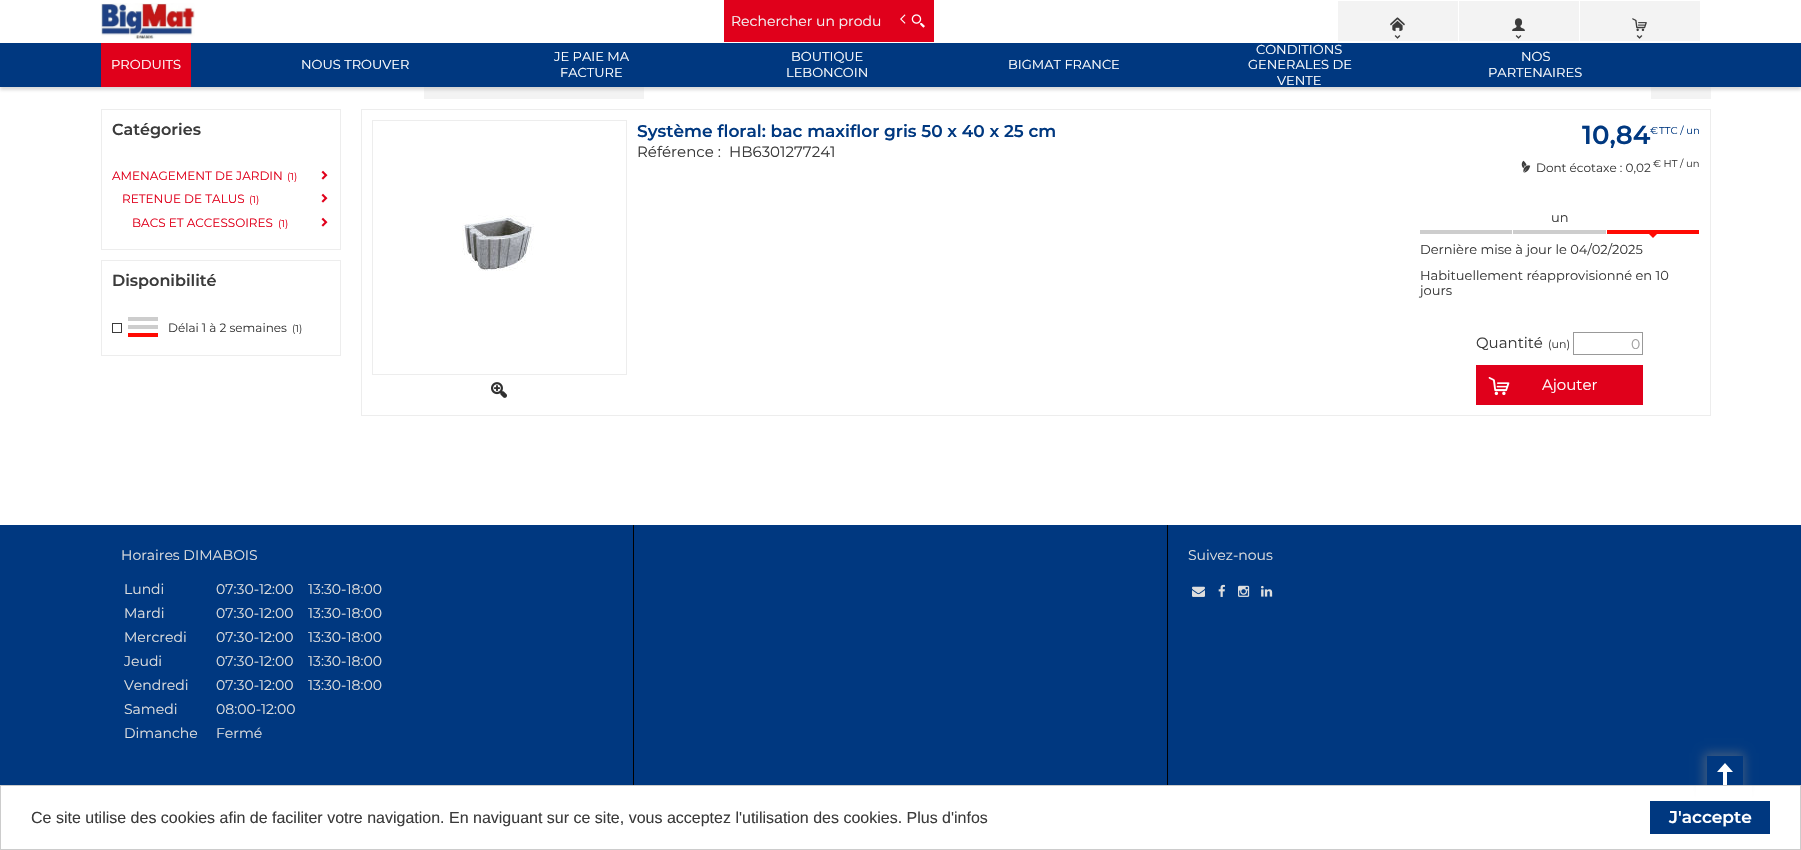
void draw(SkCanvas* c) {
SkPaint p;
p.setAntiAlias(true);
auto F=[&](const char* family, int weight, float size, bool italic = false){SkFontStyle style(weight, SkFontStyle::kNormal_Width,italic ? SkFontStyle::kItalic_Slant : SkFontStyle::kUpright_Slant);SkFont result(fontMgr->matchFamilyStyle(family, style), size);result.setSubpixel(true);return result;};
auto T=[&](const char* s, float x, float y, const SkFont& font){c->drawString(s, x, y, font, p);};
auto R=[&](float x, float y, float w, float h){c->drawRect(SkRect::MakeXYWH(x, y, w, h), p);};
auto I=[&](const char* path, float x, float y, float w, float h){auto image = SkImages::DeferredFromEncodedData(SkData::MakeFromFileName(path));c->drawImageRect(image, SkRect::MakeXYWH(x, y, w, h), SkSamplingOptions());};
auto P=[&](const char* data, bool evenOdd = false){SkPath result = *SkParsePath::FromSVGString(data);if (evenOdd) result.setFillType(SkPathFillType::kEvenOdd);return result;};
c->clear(0xffffffff);
I("1.png",101,3,94,36);
p.setColor(0xff003880);
R(0,43,1801,44);
p.setColor(0xfff3f3f3);
R(424,87,220,12);
R(1651,87,60,12);
c->save();
c->clipRect(SkRect::MakeXYWH(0,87,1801,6));
p.setColor(0x80b6b6b6);
p.setMaskFilter(SkMaskFilter::MakeBlur(kNormal_SkBlurStyle, 1.5));
c->drawRect(SkRect::MakeXYWH(0,46,1801,44),p);
p.setMaskFilter(nullptr);
c->restore();
p.setColor(0xffe0001b);
R(724,0,210,42);
auto f1 = F("Montserrat",400,14);
p.setColor(0xfff3f3f3);
T("Rechercher un produ",731,26,f1);
I("2.png",900,14,25,14);
R(1338,1,120,40);
I("3.png",1390,17,15,15);
I("4.png",1394,35,7,4);
R(1459,1,120,40);
I("5.png",1512,18,13,13);
I("4.png",1515,35,7,4);
R(1580,1,120,40);
I("6.png",1632,18,15,14);
I("4.png",1636,35,7,4);
p.setColor(0xffe0001b);
R(101,43,90,44);
auto f2 = F("Montserrat",400,13);
p.setColor(0xffffffff);
T("PRODUITS",111,69,f2);
T("NOUS TROUVER",301,69,f2);
T("JE PAIE MA",554,61,f2);
T("FACTURE",560,77,f2);
T("BOUTIQUE",791,61,f2);
T("LEBONCOIN",786,77,f2);
T("BIGMAT FRANCE",1008,69,f2);
T("CONDITIONS",1256,54,f2);
T("GENERALES DE",1248,69,f2);
T("VENTE",1277,85,f2);
T("NOS",1521,61,f2);
T("PARTENAIRES",1488,77,f2);
p.setColor(0xffededed);
R(101,109,240,1);
R(340,109,1,40);
R(101,109,1,40);
auto f3 = F("Montserrat",600,16);
p.setColor(0xff3b3b3b);
T("Catégories",112,135,f3);
p.setColor(0xffededed);
R(340,149,1,101);
R(101,249,240,1);
R(101,149,1,101);
auto f4 = F("Montserrat",400,12);
p.setColor(0xffe0001b);
T("AMENAGEMENT DE JARDIN",112,180,f4);
auto f5 = F("Montserrat",400,10);
T("(1)",287,180,f5);
I("7.png",321,170,7,10);
T("RETENUE DE TALUS",122,203,f4);
T("(1)",249,203,f5);
I("7.png",321,193,7,10);
T("BACS ET ACCESSOIRES",132,227,f4);
T("(1)",278,227,f5);
I("7.png",321,217,7,10);
p.setColor(0xffededed);
R(101,260,240,1);
R(340,260,1,41);
R(101,260,1,41);
p.setColor(0xff3b3b3b);
T("Disponibilité",112,286,f3);
p.setColor(0xffededed);
R(340,301,1,55);
R(101,355,240,1);
R(101,301,1,55);
p.setStroke(true);
p.setStrokeWidth(1);
p.setColor(0xff3b3b3b);
c->drawRect(SkRect::MakeXYWH(112.5,323.5,9,9),p);
p.setStroke(false);
p.setColor(0xffcdcdcd);
R(128,317,30,4);
R(128,325,30,4);
p.setColor(0xffff0a03);
R(128,333,30,4);
p.setColor(0xff3b3b3b);
T("Délai 1 à 2 semaines",168,332,f4);
T("(1)",292,332,f5);
p.setStroke(true);
p.setColor(0xffededed);
c->drawRect(SkRect::MakeXYWH(361.5,109.5,1349,306),p);
c->drawRect(SkRect::MakeXYWH(372.5,120.5,254,254),p);
I("8.png",462,215,72,56);
I("9.png",491,382,16,16);
auto f6 = F("Montserrat",600,17);
p.setStroke(false);
p.setColor(0xff003880);
T("Système floral: bac maxiflor gris 50 x 40 x 25 cm",637,137,f6);
auto f7 = F("Montserrat",400,15);
p.setColor(0xff3b3b3b);
T("Référence :",637,157,f7);
T("HB6301277241",729,157,f7);
auto f8 = F("Montserrat",600,26);
p.setColor(0xff003880);
T("10,84",1582,144,f8);
T("€",1650,134,f5);
T("TTC / un",1659,134,f5);
I("10.png",1521,160,10,13);
p.setColor(0xff3b3b3b);
T("Dont écotaxe : 0,02",1536,172,f4);
T("€ HT / un",1653,167,f5);
T("un",1551,222,f2);
p.setColor(0xffcdcdcd);
R(1420,230,92,4);
R(1513,230,93,4);
p.setColor(0xffff0a03);
R(1607,230,92,4);
c->drawPath(P("M1649 234h8l-4 4z"),p);
p.setColor(0xff3b3b3b);
T("Dernière mise à jour le 04/02/2025",1420,254,f2);
T("Habituellement réapprovisionné en 10",1420,280,f2);
T("jours",1420,295,f2);
T("Quantité",1476,348,f7);
auto f9 = F("Montserrat",400,11);
T("(un)",1548,348,f9);
p.setStroke(true);
p.setColor(0xff999999);
c->drawRect(SkRect::MakeXYWH(1573.5,332.5,69,22),p);
p.setStroke(false);
p.setColor(0xff9f9f9f);
T("0",1631,349,f1);
p.setColor(0xffe0001b);
R(1476,365,167,40);
I("11.png",1488,377,22,19);
p.setColor(0xffffffff);
T("Ajouter",1542,390,f7);
p.setColor(0xff003880);
R(0,525,1801,260);
p.setColor(0xff000000);
R(633,525,1,260);
p.setColor(0xffdedede);
T("Horaires DIMABOIS",121,560,f1);
T("Lundi",124,594,f1);
T("07:30-12:00",216,594,f1);
T("13:30-18:00",308,594,f1);
T("Mardi",124,618,f1);
T("07:30-12:00",216,618,f1);
T("13:30-18:00",308,618,f1);
T("Mercredi",124,642,f1);
T("07:30-12:00",216,642,f1);
T("13:30-18:00",308,642,f1);
T("Jeudi",124,666,f1);
T("07:30-12:00",216,666,f1);
T("13:30-18:00",308,666,f1);
T("Vendredi",124,690,f1);
T("07:30-12:00",216,690,f1);
T("13:30-18:00",308,690,f1);
T("Samedi",124,714,f1);
T("08:00-12:00",216,714,f1);
T("Dimanche",124,738,f1);
T("Fermé",216,738,f1);
p.setColor(0xff000000);
R(1167,525,1,260);
p.setColor(0xffdedede);
T("Suivez-nous",1188,560,f1);
I("12.png",1192,586,13,11);
I("13.png",1218,584,7,13);
I("14.png",1238,585,12,12);
I("15.png",1261,585,12,12);
p.setColor(0x807f7f7f);
p.setMaskFilter(SkMaskFilter::MakeBlur(kNormal_SkBlurStyle, 5));
c->drawRect(SkRect::MakeXYWH(1704,753,40,40),p);
p.setMaskFilter(nullptr);
p.setColor(0xffffffff);
R(1717,763,16,22);
p.setColor(0xff003880);
c->drawPath(P("M1723 772v13.5h4v-13.5h6l-8-9l-8 9zm-16-16h36v36h-36z"),p);
p.setColor(0xffffffff);
R(1696,786,56,16);
p.setStroke(true);
p.setColor(0xffcccccc);
c->drawRect(SkRect::MakeXYWH(.5,785.5,1800,64),p);
auto f10 = F("Liberation Sans",400,16);
p.setStroke(false);
p.setColor(0xff3b3b3b);
T("Ce site utilise des cookies afin de faciliter votre navigation. En naviguant sur ce site, vous acceptez l'utilisation des cookies. Plus d'infos",31,823,f10);
p.setColor(0xff003880);
R(1650,801,120,33);
p.setColor(0xffffffff);
T("J'accepte",1669,823,f6);
}
